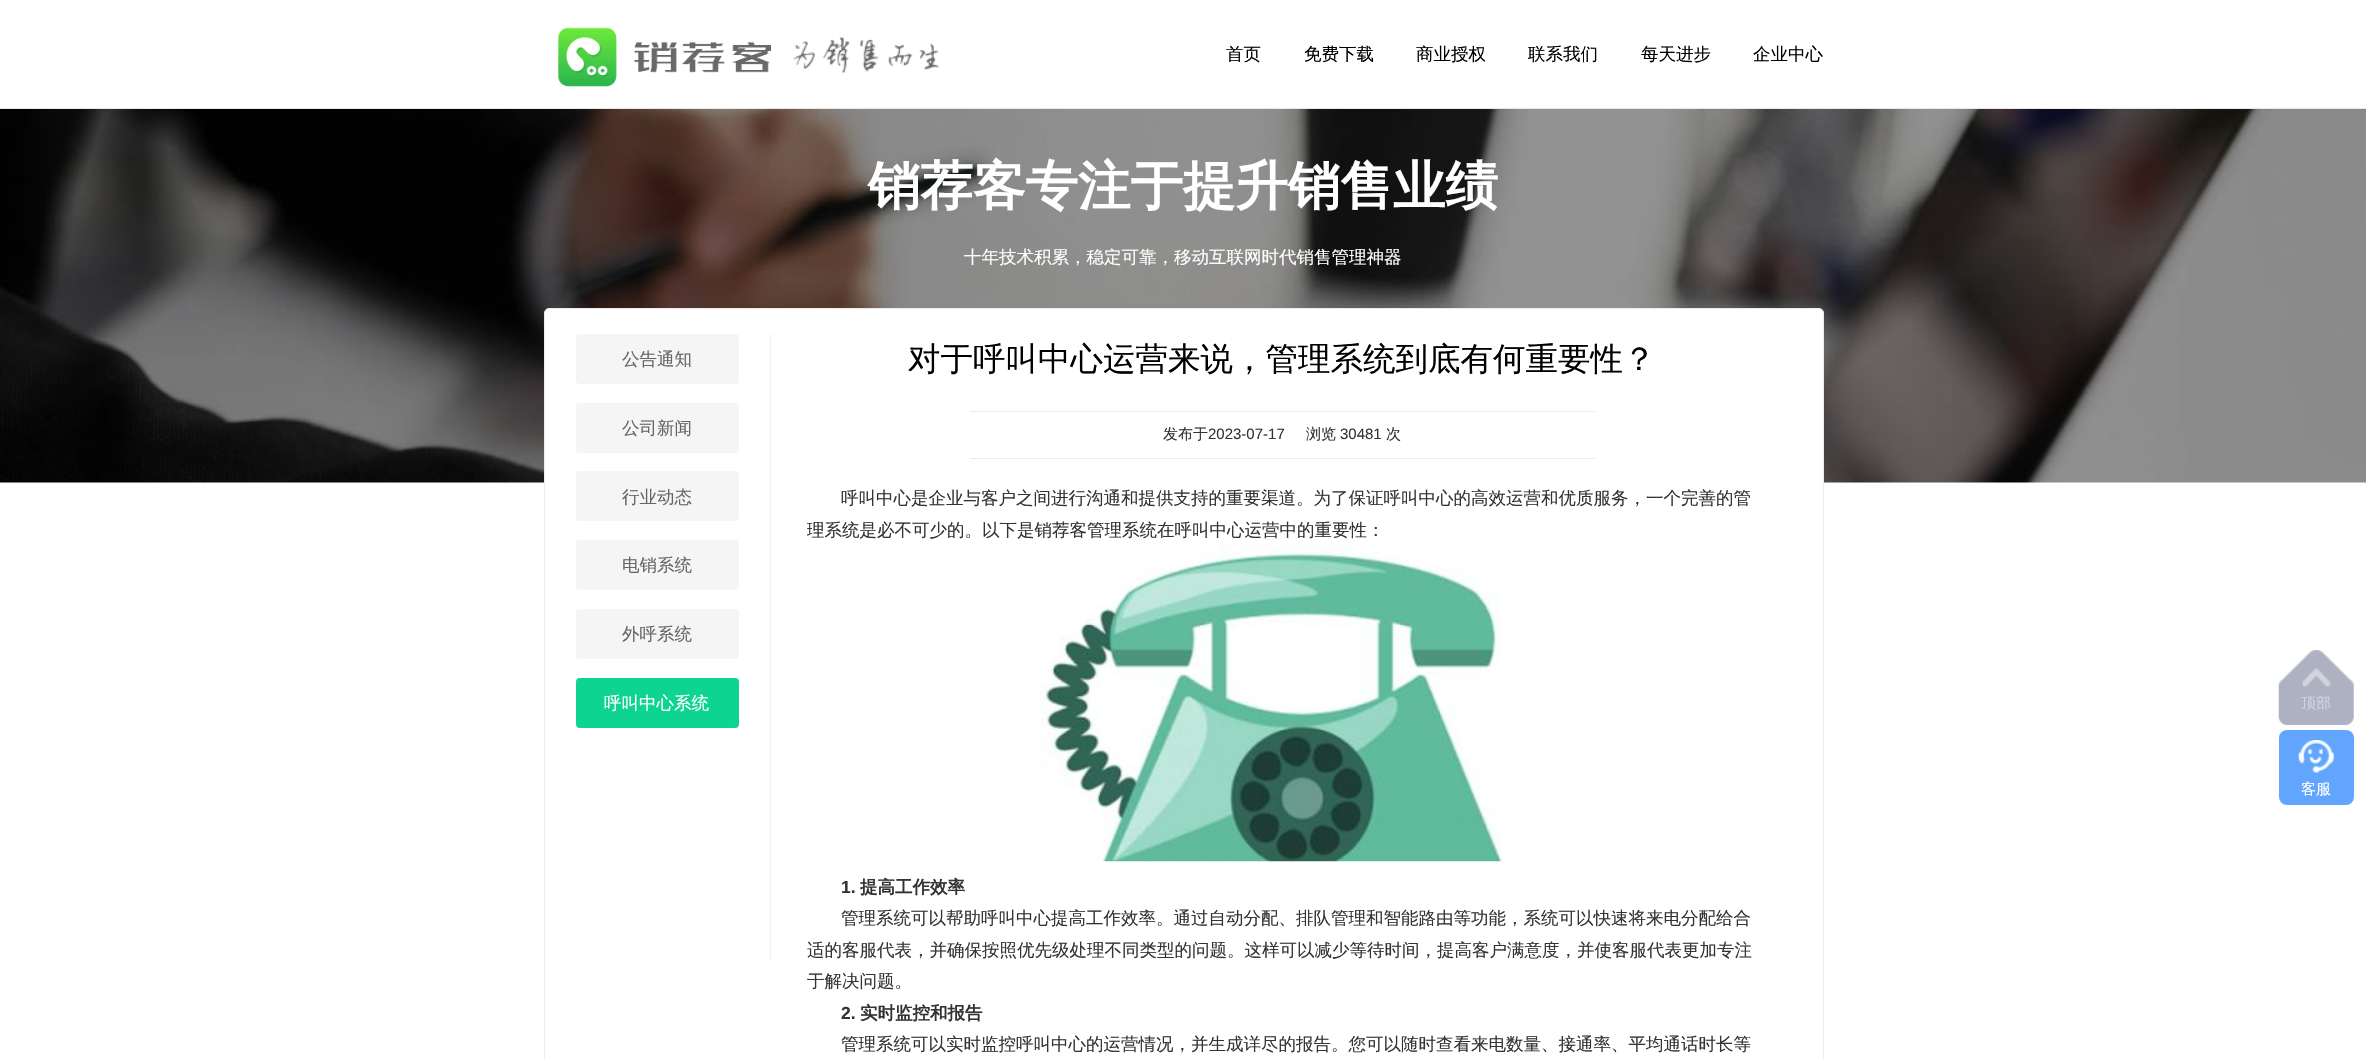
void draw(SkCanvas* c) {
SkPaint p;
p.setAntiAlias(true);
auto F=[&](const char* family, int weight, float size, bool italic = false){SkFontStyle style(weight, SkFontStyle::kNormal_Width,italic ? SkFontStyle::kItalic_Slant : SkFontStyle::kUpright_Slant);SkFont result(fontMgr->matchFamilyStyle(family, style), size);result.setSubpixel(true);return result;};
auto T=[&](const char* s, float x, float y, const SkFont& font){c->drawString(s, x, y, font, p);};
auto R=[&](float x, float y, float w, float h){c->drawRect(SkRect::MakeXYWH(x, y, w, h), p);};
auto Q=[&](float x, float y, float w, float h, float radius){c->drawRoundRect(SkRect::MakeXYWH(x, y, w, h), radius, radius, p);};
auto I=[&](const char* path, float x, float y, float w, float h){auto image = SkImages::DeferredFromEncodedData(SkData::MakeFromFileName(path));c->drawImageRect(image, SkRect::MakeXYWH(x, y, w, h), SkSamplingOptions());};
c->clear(0xffffffff);
p.setColor(0xffe8e8e8);
R(0,108,2366,1);
I("1.png",558,27,214,60);
I("2.png",793,37,146,36);
auto f1 = F("WenQuanYi Zen Hei",500,17.5);
p.setColor(0xff000000);
T("首页",1226,60,f1);
T("免费下载",1304,60,f1);
T("商业授权",1416,60,f1);
T("联系我们",1528,60,f1);
T("每天进步",1641,60,f1);
T("企业中心",1753,60,f1);
I("3.png",0,109,2366,374);
auto f2 = F("WenQuanYi Zen Hei",700,52.5);
p.setColor(0xffffffff);
T("销荐客专注于提升销售业绩",868,204,f2);
T("十年技术积累，稳定可靠，移动互联网时代销售管理神器",964,263,f1);
c->drawRoundRect(SkRect::MakeXYWH(544.5,308.5,1279,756),4.5,4.5,p);
p.setStroke(true);
p.setStrokeWidth(1);
p.setColor(0xffeaeaea);
c->drawRoundRect(SkRect::MakeXYWH(544.5,308.5,1279,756),4.5,4.5,p);
p.setStroke(false);
p.setColor(0xffefefef);
R(770,334,1,625);
p.setColor(0xfff5f5f5);
Q(576,334,163,50,4);
p.setColor(0xff666666);
T("公告通知",622,365,f1);
p.setColor(0xfff5f5f5);
Q(576,403,163,50,4);
p.setColor(0xff666666);
T("公司新闻",622,434,f1);
p.setColor(0xfff5f5f5);
Q(576,471,163,50,4);
p.setColor(0xff666666);
T("行业动态",622,503,f1);
p.setColor(0xfff5f5f5);
Q(576,540,163,50,4);
p.setColor(0xff666666);
T("电销系统",622,571,f1);
p.setColor(0xfff5f5f5);
Q(576,609,163,50,4);
p.setColor(0xff666666);
T("外呼系统",622,640,f1);
p.setColor(0xff0dd491);
Q(576,678,163,50,4);
p.setColor(0xffffffff);
T("呼叫中心系统",604,709,f1);
auto f3 = F("WenQuanYi Zen Hei",500,32.5);
p.setColor(0xff000000);
T("对于呼叫中心运营来说，管理系统到底有何重要性？",908,370,f3);
p.setColor(0xffeaeaea);
R(970,411,625,1);
R(970,458,625,1);
auto f4 = F("WenQuanYi Zen Hei",500,15);
p.setColor(0xff333333);
T("发布于",1163,439,f4);
auto f5 = F("Liberation Sans",400,15);
T("2023-07-17",1208,439,f5);
T("浏览",1306,439,f4);
T("30481",1340,439,f5);
T("次",1386,439,f4);
T("呼叫中心是企业与客户之间进行沟通和提供支持的重要渠道。为了保证呼叫中心的高效运营和优质服务，一个完善的管",841,504,f1);
T("理系统是必不可少的。以下是销荐客管理系统在呼叫中心运营中的重要性：",807,536,f1);
I("4.png",1040,546,463,316);
auto f6 = F("Liberation Sans",700,17.5);
T("1.",841,893,f6);
auto f7 = F("WenQuanYi Zen Hei",700,17.5);
T("提高工作效率",860,893,f7);
T("管理系统可以帮助呼叫中心提高工作效率。通过自动分配、排队管理和智能路由等功能，系统可以快速将来电分配给合",841,924,f1);
T("适的客服代表，并确保按照优先级处理不同类型的问题。这样可以减少等待时间，提高客户满意度，并使客服代表更加专注",807,956,f1);
T("于解决问题。",807,987,f1);
T("2.",841,1019,f6);
T("实时监控和报告",860,1019,f7);
T("管理系统可以实时监控呼叫中心的运营情况，并生成详尽的报告。您可以随时查看来电数量、接通率、平均通话时长等",841,1050,f1);
I("5.png",2278,650,76,75);
I("6.png",2302,668,29,19);
p.setColor(0xffd2d4de);
T("顶部",2301,708,f4);
p.setColor(0xff62a5ff);
Q(2279,730,75,75,8);
I("7.png",2298,740,36,33);
p.setColor(0xffffffff);
T("客服",2301,794,f4);
}
